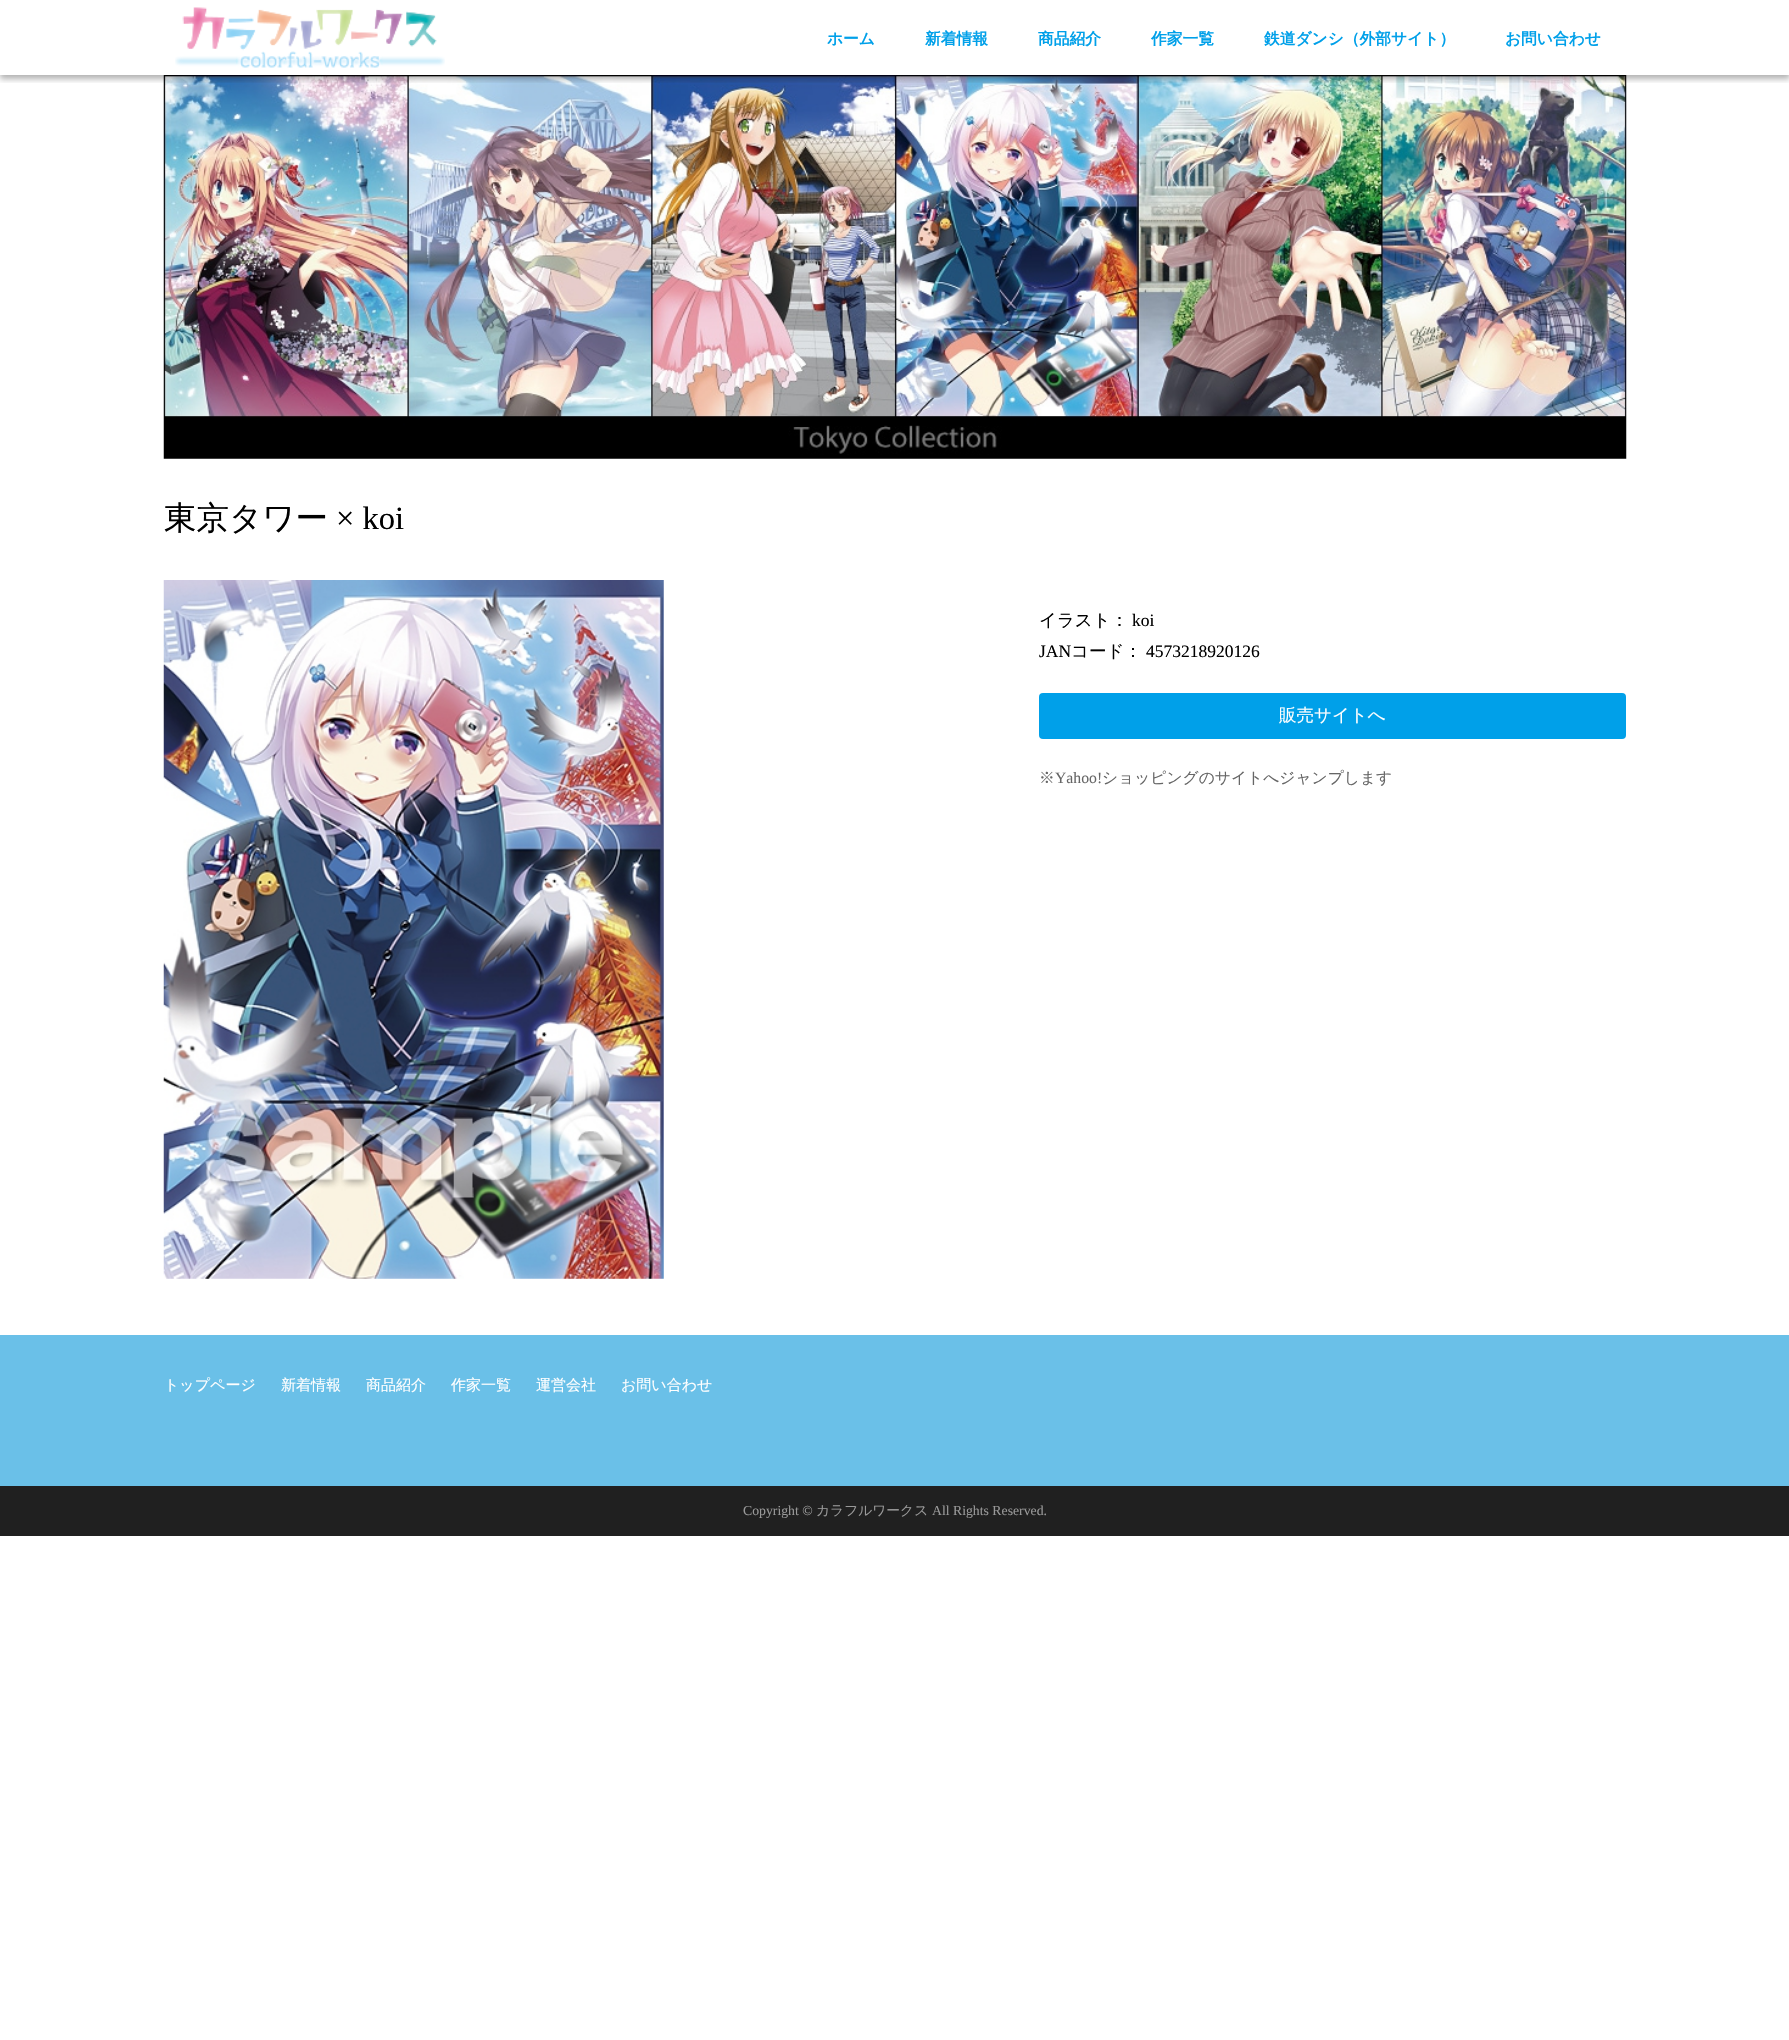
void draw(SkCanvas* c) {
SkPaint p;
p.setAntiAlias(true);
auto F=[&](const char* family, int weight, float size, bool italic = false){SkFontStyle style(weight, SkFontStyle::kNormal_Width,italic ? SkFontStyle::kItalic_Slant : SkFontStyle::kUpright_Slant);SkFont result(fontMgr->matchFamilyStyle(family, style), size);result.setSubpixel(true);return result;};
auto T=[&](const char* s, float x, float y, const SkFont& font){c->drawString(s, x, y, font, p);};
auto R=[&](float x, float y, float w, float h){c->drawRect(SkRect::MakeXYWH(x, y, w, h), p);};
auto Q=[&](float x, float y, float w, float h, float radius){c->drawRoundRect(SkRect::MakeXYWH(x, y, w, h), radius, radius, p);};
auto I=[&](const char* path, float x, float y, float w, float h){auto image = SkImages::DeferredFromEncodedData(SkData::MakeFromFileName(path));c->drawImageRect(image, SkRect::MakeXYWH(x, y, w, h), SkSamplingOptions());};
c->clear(0xffffffff);
I("2.png",163,75,1464,384);
c->save();
c->clipRect(SkRect::MakeXYWH(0,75,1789,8));
p.setColor(0x4d000000);
p.setMaskFilter(SkMaskFilter::MakeBlur(kNormal_SkBlurStyle, 3));
c->drawRect(SkRect::MakeXYWH(0,4,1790,75),p);
p.setMaskFilter(nullptr);
c->restore();
I("1.png",175,7,270,61);
auto f1 = F("WenQuanYi Zen Hei",700,15.75);
p.setColor(0xff00a0e9);
T("ホーム",827,44,f1);
T("新着情報",925,44,f1);
T("商品紹介",1038,44,f1);
T("作家一覧",1151,44,f1);
T("鉄道ダンシ（外部サイト）",1264,44,f1);
T("お問い合わせ",1505,44,f1);
auto f2 = F("WenQuanYi Zen Hei",500,32.5);
p.setColor(0xff000000);
T("東京タワー",164,529,f2);
auto f3 = F("Liberation Serif",400,32.5);
T("× koi",336,529,f3);
I("3.png",163,580,501,699);
auto f4 = F("WenQuanYi Zen Hei",500,17.5);
T("イラスト：",1039,626,f4);
auto f5 = F("Liberation Serif",400,17.5);
T("koi",1132,626,f5);
T("JAN",1039,657,f5);
T("コード：",1071,657,f4);
T("4573218920126",1146,657,f5);
p.setColor(0xff00a0e9);
Q(1039,693,587,46,4);
p.setColor(0xffffffff);
T("販売サイトへ",1279,721,f4);
auto f6 = F("WenQuanYi Zen Hei",500,15.75);
p.setColor(0xff666666);
T("※",1039,783,f6);
auto f7 = F("Liberation Serif",400,15.75);
T("Yahoo!",1055,783,f7);
T("ショッピングのサイトへジャンプします",1102,783,f6);
p.setColor(0xff6ac0e8);
R(0,1335,1789,151);
auto f8 = F("WenQuanYi Zen Hei",500,15);
p.setColor(0xffffffff);
T("トップページ",164,1390,f8);
T("新着情報",281,1390,f8);
T("商品紹介",366,1390,f8);
T("作家一覧",451,1390,f8);
T("運営会社",536,1390,f8);
T("お問い合わせ",621,1390,f8);
p.setColor(0xff202020);
R(0,1486,1789,50);
auto f9 = F("Liberation Serif",400,13.75);
p.setColor(0xff999999);
T("Copyright ©",743,1515,f9);
auto f10 = F("WenQuanYi Zen Hei",500,13.75);
T("カラフルワークス",816,1515,f10);
T("All Rights Reserved.",932,1515,f9);
}
